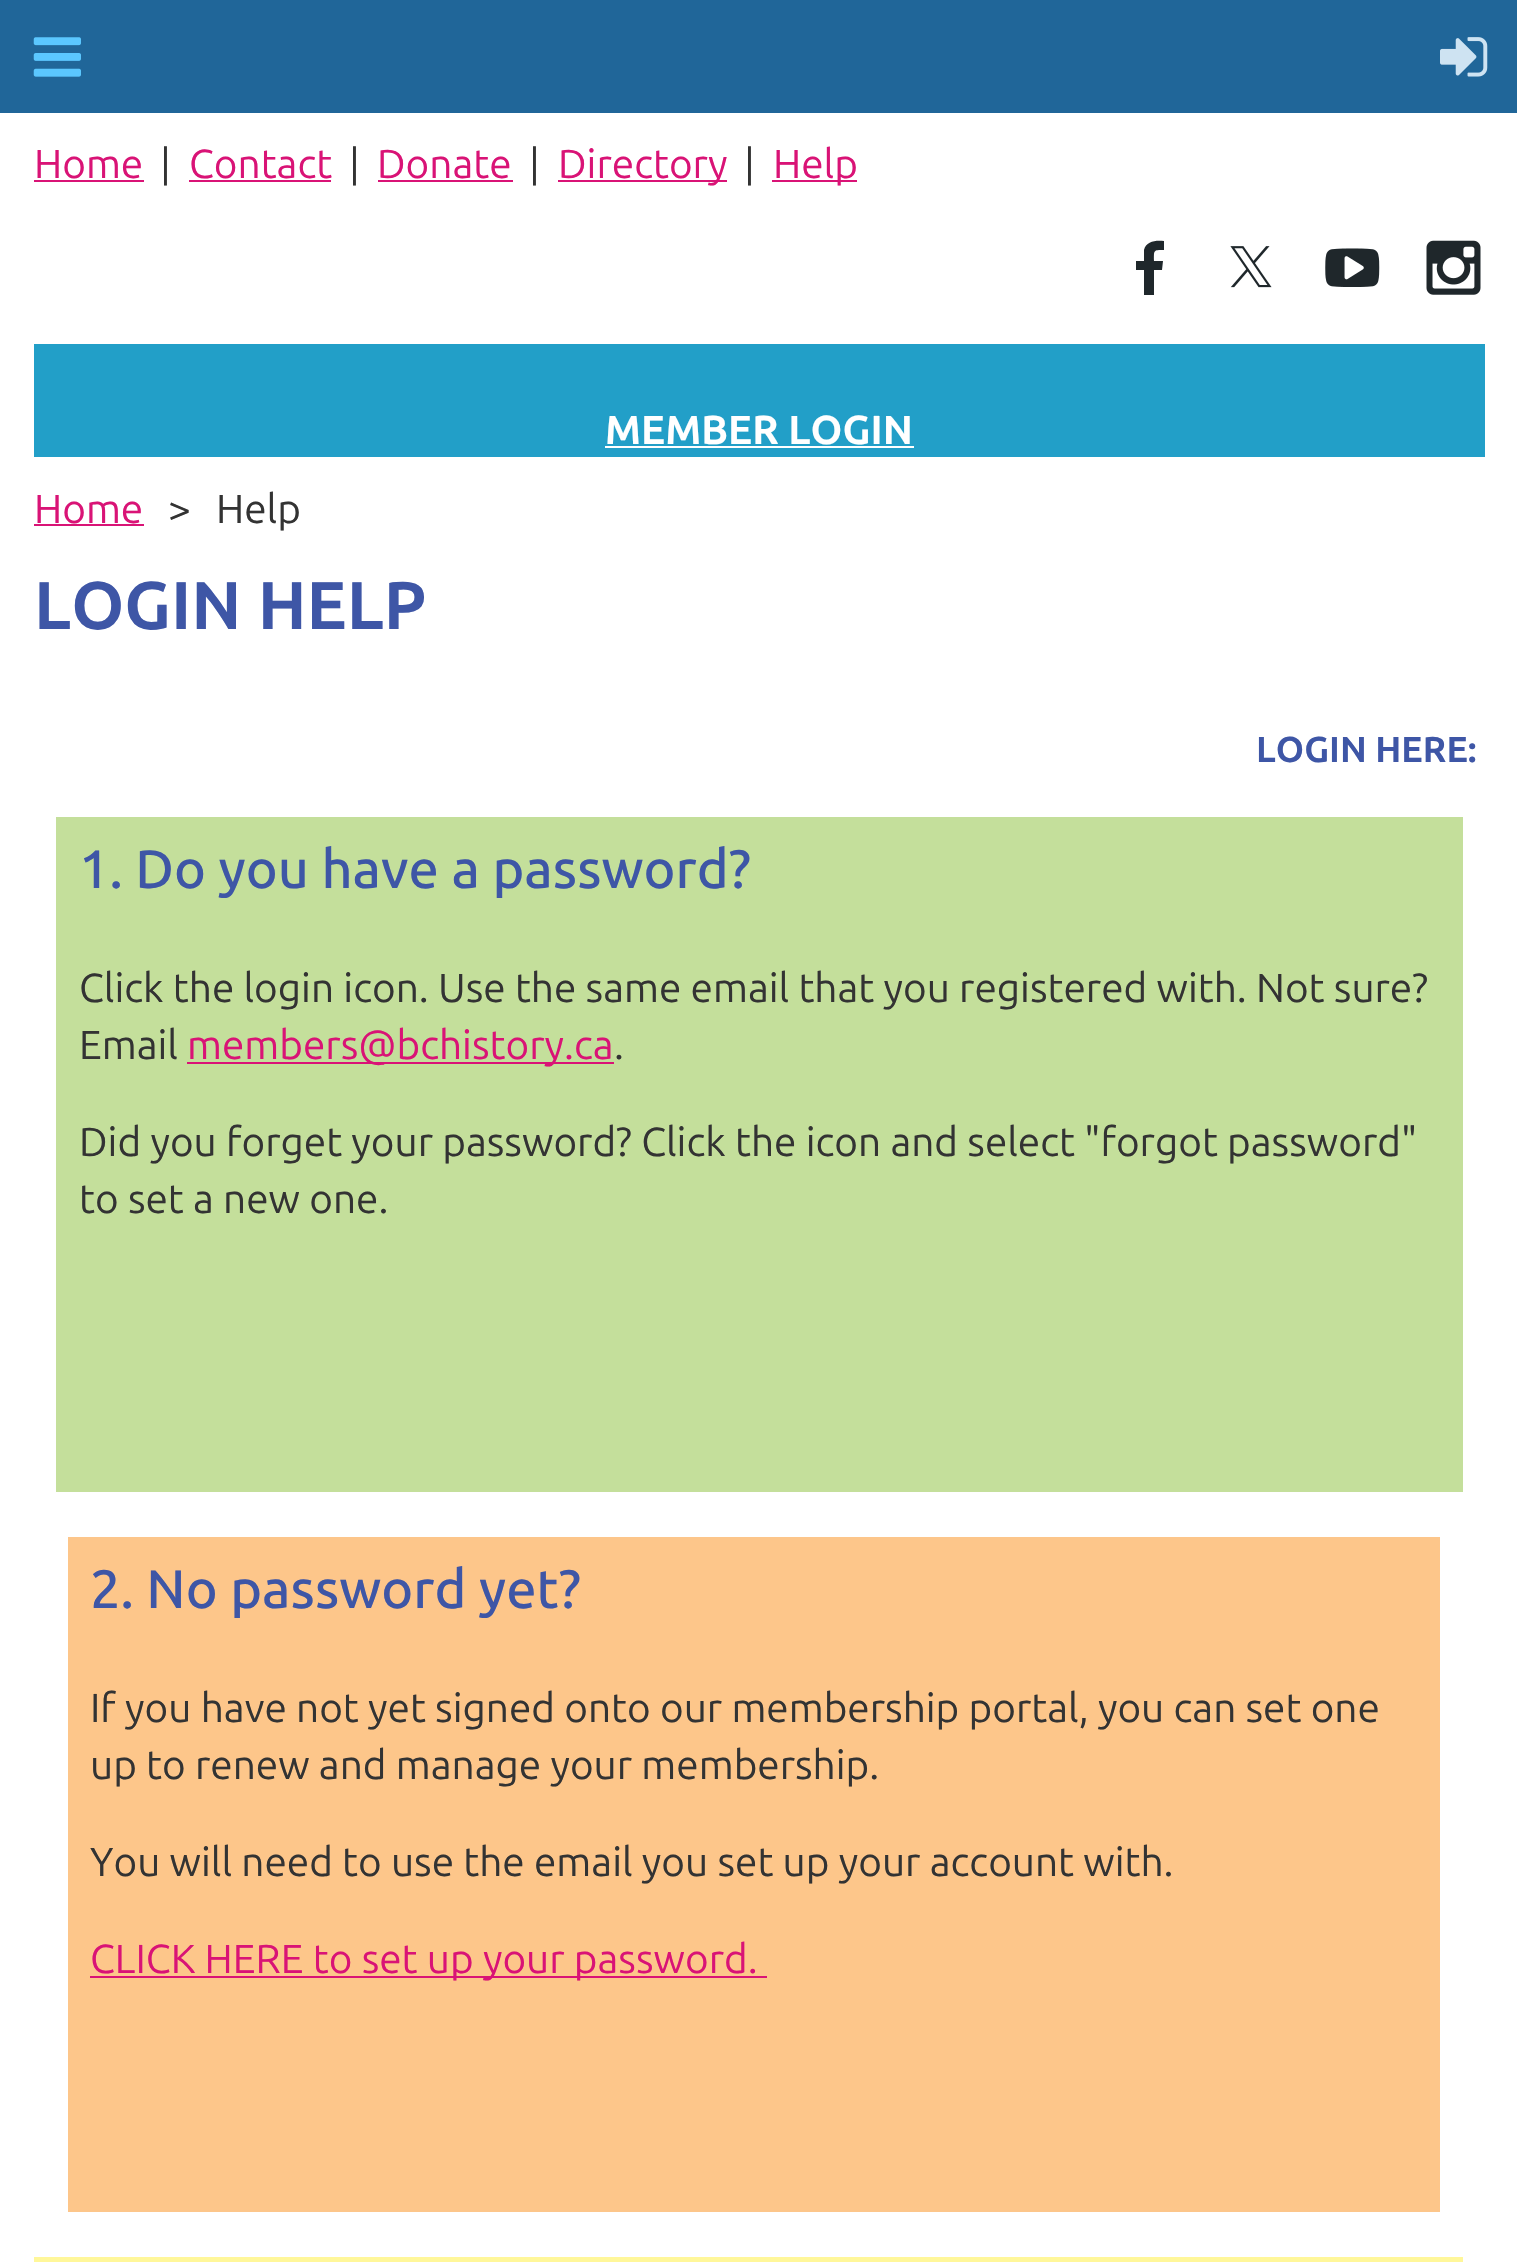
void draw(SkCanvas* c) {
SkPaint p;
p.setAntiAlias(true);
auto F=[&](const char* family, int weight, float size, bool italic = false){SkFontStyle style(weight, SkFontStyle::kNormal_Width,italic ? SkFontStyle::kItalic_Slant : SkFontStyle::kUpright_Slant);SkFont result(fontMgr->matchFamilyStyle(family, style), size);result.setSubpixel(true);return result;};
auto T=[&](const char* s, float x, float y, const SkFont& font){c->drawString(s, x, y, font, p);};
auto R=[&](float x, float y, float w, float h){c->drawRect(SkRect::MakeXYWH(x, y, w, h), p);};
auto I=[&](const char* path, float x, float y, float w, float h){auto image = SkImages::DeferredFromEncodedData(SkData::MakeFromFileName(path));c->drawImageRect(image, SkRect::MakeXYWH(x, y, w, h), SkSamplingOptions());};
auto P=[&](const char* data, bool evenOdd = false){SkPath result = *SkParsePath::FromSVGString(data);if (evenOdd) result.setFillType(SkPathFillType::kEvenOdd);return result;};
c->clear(0xffffffff);
p.setColor(0xff206699);
R(0,0,1517,113);
I("1.png",33,37,48,40);
I("2.png",1440,37,48,40);
auto f1 = F("Ubuntu",400,40.5);
p.setColor(0xffd91376);
T("Home",34,178,f1);
R(34,180,110,2);
p.setColor(0xff333333);
T("|",160,178,f1);
p.setColor(0xffd91376);
T("Contact",189,178,f1);
R(189,180,142,2);
p.setColor(0xff333333);
T("|",349,178,f1);
p.setColor(0xffd91376);
T("Donate",377,178,f1);
R(378,180,135,2);
p.setColor(0xff333333);
T("|",529,178,f1);
p.setColor(0xffd91376);
R(558,180,169,2);
T("Directory",558,178,f1);
p.setColor(0xff333333);
T("|",744,178,f1);
p.setColor(0xffd91376);
R(772,180,85,2);
T("Help",773,178,f1);
p.setColor(0xff1f272b);
c->drawPath(P("M1164 250c-11 0-10 0-10 11h9l-1 9h-8v25h-10v-25h-8v-9h8v-11c2-9 12-10 20-9z"),p);
I("3.png",1230,246,42,42);
I("4.png",1325,248,55,39);
I("5.png",1426,240,55,55);
p.setColor(0xff229fc8);
R(34,344,1451,113);
auto f2 = F("Ubuntu",700,40.5);
p.setColor(0xffffffff);
T("MEMBER LOGIN",605,444,f2);
R(605,446,309,2);
p.setColor(0xffd91376);
T("Home",34,523,f1);
R(34,524,110,2);
p.setColor(0xff333333);
T(">",168,523,f1);
T("Help",216,523,f1);
auto f3 = F("Ubuntu",700,67.5);
p.setColor(0xff3e56a6);
T("LOGIN HELP",34,629,f3);
auto f4 = F("Ubuntu",700,36);
T("LOGIN HERE:",1256,762,f4);
p.setColor(0xffc4df9b);
R(56,817,1407,675);
auto f5 = F("Ubuntu",500,54);
p.setColor(0xff3e56a6);
T("1. Do you have a password?",79,888,f5);
p.setColor(0xff333333);
T("Click the login icon. Use the same email that you registered with. Not sure?",79,1002,f1);
T("Email",79,1059,f1);
p.setColor(0xffd91376);
R(187,1062,427,2);
T("members@bchistory.ca",187,1059,f1);
p.setColor(0xff333333);
T(".",614,1059,f1);
T("Did you forget your password? Click the icon and select \"forgot password\"",79,1156,f1);
T("to set a new one.",79,1213,f1);
p.setColor(0xfffdc68a);
R(68,1537,1372,675);
p.setColor(0xff3e56a6);
T("2. No password yet?",90,1608,f5);
p.setColor(0xff333333);
T("If you have not yet signed onto our membership portal, you can set one",90,1722,f1);
T("up to renew and manage your membership.",90,1779,f1);
T("You will need to use the email you set up your account with.",90,1876,f1);
p.setColor(0xffd91376);
R(90,1976,677,2);
T("CLICK HERE to set up your password.",90,1973,f1);
p.setColor(0xfffff79a);
R(34,2257,1429,5);
}
